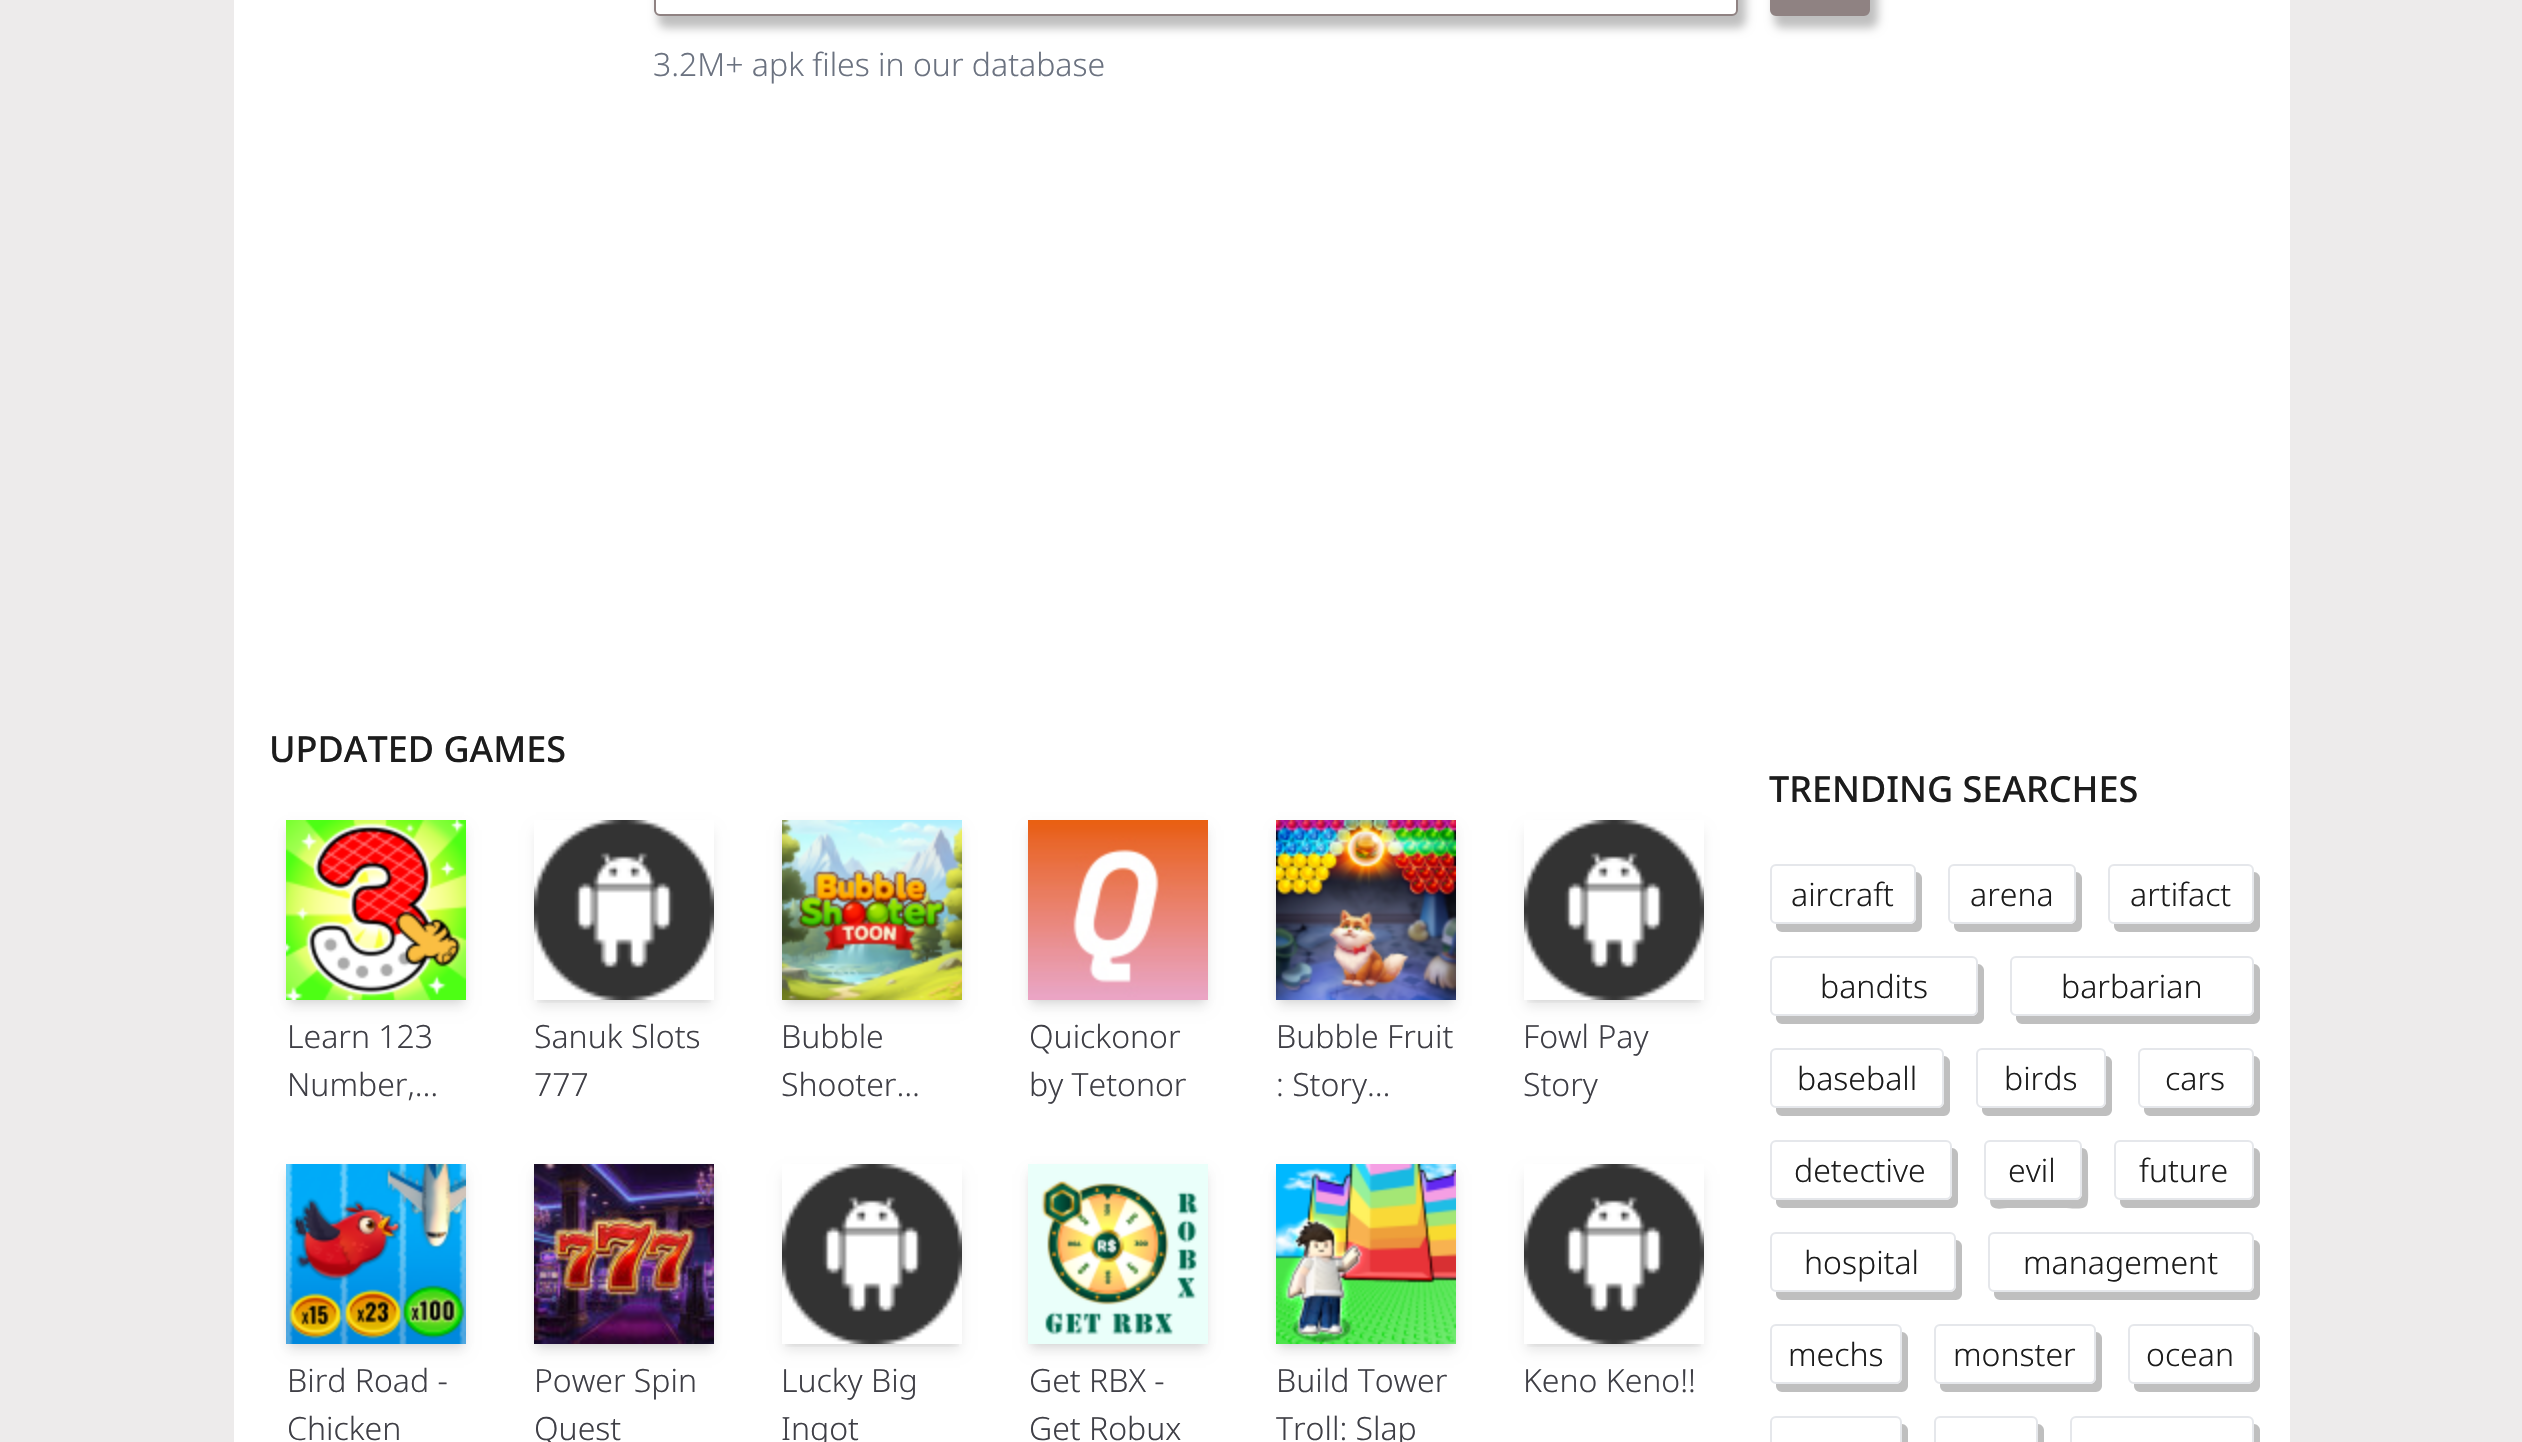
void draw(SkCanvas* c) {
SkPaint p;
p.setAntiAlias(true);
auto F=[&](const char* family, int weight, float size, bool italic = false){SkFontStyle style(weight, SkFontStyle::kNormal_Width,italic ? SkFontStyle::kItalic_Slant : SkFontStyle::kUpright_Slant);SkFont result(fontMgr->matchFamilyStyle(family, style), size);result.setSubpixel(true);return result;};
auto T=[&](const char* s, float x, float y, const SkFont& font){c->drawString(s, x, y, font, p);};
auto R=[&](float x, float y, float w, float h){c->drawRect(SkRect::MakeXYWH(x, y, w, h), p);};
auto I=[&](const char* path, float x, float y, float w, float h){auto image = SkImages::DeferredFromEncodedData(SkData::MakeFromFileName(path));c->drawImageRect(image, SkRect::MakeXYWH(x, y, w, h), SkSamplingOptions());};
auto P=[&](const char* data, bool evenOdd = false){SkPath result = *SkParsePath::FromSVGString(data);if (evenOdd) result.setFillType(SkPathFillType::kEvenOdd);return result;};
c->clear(0xffedebeb);
p.setColor(0xffffffff);
R(234,0,2056,1442);
p.setColor(0x40000000);
p.setMaskFilter(SkMaskFilter::MakeBlur(kNormal_SkBlurStyle, 5));
c->drawRoundRect(SkRect::MakeXYWH(658,-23,1088,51),8,8,p);
p.setMaskFilter(nullptr);
p.setColor(0xffffffff);
c->drawRoundRect(SkRect::MakeXYWH(655,-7,1082,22),5,5,p);
p.setStroke(true);
p.setStrokeWidth(2);
p.setColor(0xff8f8282);
c->drawRoundRect(SkRect::MakeXYWH(655,-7,1082,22),5,5,p);
p.setStroke(false);
p.setColor(0x40000000);
p.setMaskFilter(SkMaskFilter::MakeBlur(kNormal_SkBlurStyle, 5));
c->drawRoundRect(SkRect::MakeXYWH(1774,-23,104,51),8,8,p);
p.setMaskFilter(nullptr);
p.setColor(0xff8f8282);
c->drawRoundRect(SkRect::MakeXYWH(1771,-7,98,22),5,5,p);
p.setStroke(true);
c->drawRoundRect(SkRect::MakeXYWH(1771,-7,98,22),5,5,p);
auto f1 = F("Noto Sans",300,32);
p.setStroke(false);
p.setColor(0xff6b7280);
T("3.2M+ apk files in our database",653,76,f1);
auto f2 = F("Noto Sans",500,36);
p.setColor(0xff1c1c1c);
T("UPDATED GAMES",269,762,f2);
p.setColor(0x1a000000);
p.setMaskFilter(SkMaskFilter::MakeBlur(kNormal_SkBlurStyle, 4));
c->drawRect(SkRect::MakeXYWH(290,828,172,172),p);
p.setMaskFilter(nullptr);
p.setMaskFilter(SkMaskFilter::MakeBlur(kNormal_SkBlurStyle, 6));
c->drawRect(SkRect::MakeXYWH(288,830,176,176),p);
p.setMaskFilter(nullptr);
I("1.png",286,820,180,180);
p.setColor(0xff3f3f46);
T("Learn 123",287,1048,f1);
T("Number,…",287,1096,f1);
c->save();
c->clipRect(SkRect::MakeXYWH(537,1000,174,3));
p.setColor(0x1a000000);
p.setMaskFilter(SkMaskFilter::MakeBlur(kNormal_SkBlurStyle, 4));
c->drawRect(SkRect::MakeXYWH(538,828,172,172),p);
p.setMaskFilter(nullptr);
c->restore();
c->save();
c->clipPath(P("M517 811h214v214h-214zm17 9h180v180h-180z",true),true);
p.setMaskFilter(SkMaskFilter::MakeBlur(kNormal_SkBlurStyle, 6));
c->drawRect(SkRect::MakeXYWH(536,830,176,176),p);
p.setMaskFilter(nullptr);
c->restore();
I("2.png",534,820,180,180);
p.setColor(0xff3f3f46);
T("Sanuk Slots",534,1048,f1);
T("777",534,1096,f1);
p.setColor(0x1a000000);
p.setMaskFilter(SkMaskFilter::MakeBlur(kNormal_SkBlurStyle, 4));
c->drawRect(SkRect::MakeXYWH(786,828,172,172),p);
p.setMaskFilter(nullptr);
p.setMaskFilter(SkMaskFilter::MakeBlur(kNormal_SkBlurStyle, 6));
c->drawRect(SkRect::MakeXYWH(784,830,176,176),p);
p.setMaskFilter(nullptr);
I("3.png",782,820,180,180);
p.setColor(0xff3f3f46);
T("Bubble",781,1048,f1);
T("Shooter…",781,1096,f1);
p.setColor(0x1a000000);
p.setMaskFilter(SkMaskFilter::MakeBlur(kNormal_SkBlurStyle, 4));
c->drawRect(SkRect::MakeXYWH(1032,828,172,172),p);
p.setMaskFilter(nullptr);
p.setMaskFilter(SkMaskFilter::MakeBlur(kNormal_SkBlurStyle, 6));
c->drawRect(SkRect::MakeXYWH(1030,830,176,176),p);
p.setMaskFilter(nullptr);
I("4.png",1028,820,180,180);
p.setColor(0xff3f3f46);
T("Quickonor",1029,1048,f1);
T("by Tetonor",1029,1096,f1);
p.setColor(0x1a000000);
p.setMaskFilter(SkMaskFilter::MakeBlur(kNormal_SkBlurStyle, 4));
c->drawRect(SkRect::MakeXYWH(1280,828,172,172),p);
p.setMaskFilter(nullptr);
p.setMaskFilter(SkMaskFilter::MakeBlur(kNormal_SkBlurStyle, 6));
c->drawRect(SkRect::MakeXYWH(1278,830,176,176),p);
p.setMaskFilter(nullptr);
I("5.png",1276,820,180,180);
p.setColor(0xff3f3f46);
T("Bubble Fruit",1276,1048,f1);
T(": Story…",1276,1096,f1);
c->save();
c->clipRect(SkRect::MakeXYWH(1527,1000,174,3));
p.setColor(0x1a000000);
p.setMaskFilter(SkMaskFilter::MakeBlur(kNormal_SkBlurStyle, 4));
c->drawRect(SkRect::MakeXYWH(1528,828,172,172),p);
p.setMaskFilter(nullptr);
c->restore();
c->save();
c->clipPath(P("M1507 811h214v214h-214zm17 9h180v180h-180z",true),true);
p.setMaskFilter(SkMaskFilter::MakeBlur(kNormal_SkBlurStyle, 6));
c->drawRect(SkRect::MakeXYWH(1526,830,176,176),p);
p.setMaskFilter(nullptr);
c->restore();
I("6.png",1524,820,180,180);
p.setColor(0xff3f3f46);
T("Fowl Pay",1523,1048,f1);
T("Story",1523,1096,f1);
p.setColor(0x1a000000);
p.setMaskFilter(SkMaskFilter::MakeBlur(kNormal_SkBlurStyle, 4));
c->drawRect(SkRect::MakeXYWH(290,1172,172,172),p);
p.setMaskFilter(nullptr);
p.setMaskFilter(SkMaskFilter::MakeBlur(kNormal_SkBlurStyle, 6));
c->drawRect(SkRect::MakeXYWH(288,1174,176,176),p);
p.setMaskFilter(nullptr);
I("7.png",286,1164,180,180);
p.setColor(0xff3f3f46);
T("Bird Road -",287,1392,f1);
T("Chicken",287,1440,f1);
p.setColor(0x1a000000);
p.setMaskFilter(SkMaskFilter::MakeBlur(kNormal_SkBlurStyle, 4));
c->drawRect(SkRect::MakeXYWH(538,1172,172,172),p);
p.setMaskFilter(nullptr);
p.setMaskFilter(SkMaskFilter::MakeBlur(kNormal_SkBlurStyle, 6));
c->drawRect(SkRect::MakeXYWH(536,1174,176,176),p);
p.setMaskFilter(nullptr);
I("8.png",534,1164,180,180);
p.setColor(0xff3f3f46);
T("Power Spin",534,1392,f1);
T("Quest",534,1440,f1);
c->save();
c->clipRect(SkRect::MakeXYWH(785,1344,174,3));
p.setColor(0x1a000000);
p.setMaskFilter(SkMaskFilter::MakeBlur(kNormal_SkBlurStyle, 4));
c->drawRect(SkRect::MakeXYWH(786,1172,172,172),p);
p.setMaskFilter(nullptr);
c->restore();
c->save();
c->clipPath(P("M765 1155h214v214h-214zm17 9h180v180h-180z",true),true);
p.setMaskFilter(SkMaskFilter::MakeBlur(kNormal_SkBlurStyle, 6));
c->drawRect(SkRect::MakeXYWH(784,1174,176,176),p);
p.setMaskFilter(nullptr);
c->restore();
I("6.png",782,1164,180,180);
p.setColor(0xff3f3f46);
T("Lucky Big",781,1392,f1);
T("Ingot",781,1440,f1);
p.setColor(0x1a000000);
p.setMaskFilter(SkMaskFilter::MakeBlur(kNormal_SkBlurStyle, 4));
c->drawRect(SkRect::MakeXYWH(1032,1172,172,172),p);
p.setMaskFilter(nullptr);
p.setMaskFilter(SkMaskFilter::MakeBlur(kNormal_SkBlurStyle, 6));
c->drawRect(SkRect::MakeXYWH(1030,1174,176,176),p);
p.setMaskFilter(nullptr);
I("9.png",1028,1164,180,180);
p.setColor(0xff3f3f46);
T("Get RBX -",1029,1392,f1);
T("Get Robux",1029,1440,f1);
p.setColor(0x1a000000);
p.setMaskFilter(SkMaskFilter::MakeBlur(kNormal_SkBlurStyle, 4));
c->drawRect(SkRect::MakeXYWH(1280,1172,172,172),p);
p.setMaskFilter(nullptr);
p.setMaskFilter(SkMaskFilter::MakeBlur(kNormal_SkBlurStyle, 6));
c->drawRect(SkRect::MakeXYWH(1278,1174,176,176),p);
p.setMaskFilter(nullptr);
I("10.png",1276,1164,180,180);
p.setColor(0xff3f3f46);
T("Build Tower",1276,1392,f1);
T("Troll: Slap",1276,1440,f1);
c->save();
c->clipRect(SkRect::MakeXYWH(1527,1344,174,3));
p.setColor(0x1a000000);
p.setMaskFilter(SkMaskFilter::MakeBlur(kNormal_SkBlurStyle, 4));
c->drawRect(SkRect::MakeXYWH(1528,1172,172,172),p);
p.setMaskFilter(nullptr);
c->restore();
c->save();
c->clipPath(P("M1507 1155h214v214h-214zm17 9h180v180h-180z",true),true);
p.setMaskFilter(SkMaskFilter::MakeBlur(kNormal_SkBlurStyle, 6));
c->drawRect(SkRect::MakeXYWH(1526,1174,176,176),p);
p.setMaskFilter(nullptr);
c->restore();
I("6.png",1524,1164,180,180);
p.setColor(0xff3f3f46);
T("Keno Keno!!",1523,1392,f1);
p.setColor(0xff1c1c1c);
T("TRENDING SEARCHES",1769,802,f2);
p.setColor(0xffbfbfbf);
c->drawPath(P("M1776 924v2c0 3 3 6 6 6h134c3 0 6-3 6-6v-48c0-3-3-6-6-6v46c0 3-3 6-6 6z"),p);
p.setStroke(true);
p.setColor(0xffe5e7eb);
c->drawRoundRect(SkRect::MakeXYWH(1771,865,144,58),5,5,p);
p.setStroke(false);
p.setColor(0xff1c1c1c);
T("aircraft",1791,906,f1);
p.setColor(0xffbfbfbf);
c->drawPath(P("M1954 924v2c0 3 3 6 6 6h116c3 0 6-3 6-6v-48c0-3-3-6-6-6v46c0 3-3 6-6 6z"),p);
p.setStroke(true);
p.setColor(0xffe5e7eb);
c->drawRoundRect(SkRect::MakeXYWH(1949,865,126,58),5,5,p);
p.setStroke(false);
p.setColor(0xff1c1c1c);
T("arena",1970,906,f1);
p.setColor(0xffbfbfbf);
c->drawPath(P("M2114 924v2c0 3 3 6 6 6h134c3 0 6-3 6-6v-48c0-3-3-6-6-6v46c0 3-3 6-6 6z"),p);
p.setStroke(true);
p.setColor(0xffe5e7eb);
c->drawRoundRect(SkRect::MakeXYWH(2109,865,144,58),5,5,p);
p.setStroke(false);
p.setColor(0xff1c1c1c);
T("artifact",2130,906,f1);
p.setColor(0xffbfbfbf);
c->drawPath(P("M1776 1016v2c0 3 3 6 6 6h196c3 0 6-3 6-6v-48c0-3-3-6-6-6v46c0 3-3 6-6 6z"),p);
p.setStroke(true);
p.setColor(0xffe5e7eb);
c->drawRoundRect(SkRect::MakeXYWH(1771,957,206,58),5,5,p);
p.setStroke(false);
p.setColor(0xff1c1c1c);
T("bandits",1820,998,f1);
p.setColor(0xffbfbfbf);
c->drawPath(P("M2016 1016v2c0 3 3 6 6 6h232c3 0 6-3 6-6v-48c0-3-3-6-6-6v46c0 3-3 6-6 6z"),p);
p.setStroke(true);
p.setColor(0xffe5e7eb);
c->drawRoundRect(SkRect::MakeXYWH(2011,957,242,58),5,5,p);
p.setStroke(false);
p.setColor(0xff1c1c1c);
T("barbarian",2061,998,f1);
p.setColor(0xffbfbfbf);
c->drawPath(P("M1776 1108v2c0 3 3 6 6 6h162c3 0 6-3 6-6v-48c0-3-3-6-6-6v46c0 3-3 6-6 6z"),p);
p.setStroke(true);
p.setColor(0xffe5e7eb);
c->drawRoundRect(SkRect::MakeXYWH(1771,1049,172,58),5,5,p);
p.setStroke(false);
p.setColor(0xff1c1c1c);
T("baseball",1797,1090,f1);
p.setColor(0xffbfbfbf);
c->drawPath(P("M1982 1108v2c0 3 3 6 6 6h118c3 0 6-3 6-6v-48c0-3-3-6-6-6v46c0 3-3 6-6 6z"),p);
p.setStroke(true);
p.setColor(0xffe5e7eb);
c->drawRoundRect(SkRect::MakeXYWH(1977,1049,128,58),5,5,p);
p.setStroke(false);
p.setColor(0xff1c1c1c);
T("birds",2004,1090,f1);
p.setColor(0xffbfbfbf);
c->drawPath(P("M2144 1108v2c0 3 3 6 6 6h104c3 0 6-3 6-6v-48c0-3-3-6-6-6v46c0 3-3 6-6 6z"),p);
p.setStroke(true);
p.setColor(0xffe5e7eb);
c->drawRoundRect(SkRect::MakeXYWH(2139,1049,114,58),5,5,p);
p.setStroke(false);
p.setColor(0xff1c1c1c);
T("cars",2165,1090,f1);
p.setColor(0xffbfbfbf);
c->drawPath(P("M1776 1200v2c0 3 3 6 6 6h170c3 0 6-3 6-6v-48c0-3-3-6-6-6v46c0 3-3 6-6 6z"),p);
p.setStroke(true);
p.setColor(0xffe5e7eb);
c->drawRoundRect(SkRect::MakeXYWH(1771,1141,180,58),5,5,p);
p.setStroke(false);
p.setColor(0xff1c1c1c);
T("detective",1794,1182,f1);
p.setColor(0xffbfbfbf);
c->drawPath(P("M1990 1200c0 12 11 8 20 8h43c40 0 35 7 35-30v-16c0-5 1-14-6-14v46c0 3-3 6-6 6z"),p);
p.setStroke(true);
p.setColor(0xffe5e7eb);
c->drawRoundRect(SkRect::MakeXYWH(1985,1141,96,58),5,5,p);
p.setStroke(false);
p.setColor(0xff1c1c1c);
T("evil",2008,1182,f1);
p.setColor(0xffbfbfbf);
c->drawPath(P("M2120 1200v2c0 3 3 6 6 6h128c3 0 6-3 6-6v-48c0-3-3-6-6-6v46c0 3-3 6-6 6z"),p);
p.setStroke(true);
p.setColor(0xffe5e7eb);
c->drawRoundRect(SkRect::MakeXYWH(2115,1141,138,58),5,5,p);
p.setStroke(false);
p.setColor(0xff1c1c1c);
T("future",2139,1182,f1);
p.setColor(0xffbfbfbf);
c->drawPath(P("M1776 1292v2c0 3 3 6 6 6h174c3 0 6-3 6-6v-48c0-3-3-6-6-6v46c0 3-3 6-6 6z"),p);
p.setStroke(true);
p.setColor(0xffe5e7eb);
c->drawRoundRect(SkRect::MakeXYWH(1771,1233,184,58),5,5,p);
p.setStroke(false);
p.setColor(0xff1c1c1c);
T("hospital",1804,1274,f1);
p.setColor(0xffbfbfbf);
c->drawPath(P("M1994 1292v2c0 3 3 6 6 6h254c3 0 6-3 6-6v-48c0-3-3-6-6-6v46c0 3-3 6-6 6z"),p);
p.setStroke(true);
p.setColor(0xffe5e7eb);
c->drawRoundRect(SkRect::MakeXYWH(1989,1233,264,58),5,5,p);
p.setStroke(false);
p.setColor(0xff1c1c1c);
T("management",2023,1274,f1);
p.setColor(0xffbfbfbf);
c->drawPath(P("M1776 1384v2c0 3 3 6 6 6h120c3 0 6-3 6-6v-48c0-3-3-6-6-6v46c0 3-3 6-6 6z"),p);
p.setStroke(true);
p.setColor(0xffe5e7eb);
c->drawRoundRect(SkRect::MakeXYWH(1771,1325,130,58),5,5,p);
p.setStroke(false);
p.setColor(0xff1c1c1c);
T("mechs",1788,1366,f1);
p.setColor(0xffbfbfbf);
c->drawPath(P("M1940 1384v2c0 3 3 6 6 6h150c3 0 6-3 6-6v-48c0-3-3-6-6-6v46c0 3-3 6-6 6z"),p);
p.setStroke(true);
p.setColor(0xffe5e7eb);
c->drawRoundRect(SkRect::MakeXYWH(1935,1325,160,58),5,5,p);
p.setStroke(false);
p.setColor(0xff1c1c1c);
T("monster",1953,1366,f1);
p.setColor(0xffbfbfbf);
c->drawPath(P("M2134 1384v2c0 3 3 6 6 6h114c3 0 6-3 6-6v-48c0-3-3-6-6-6v46c0 3-3 6-6 6z"),p);
p.setStroke(true);
p.setColor(0xffe5e7eb);
c->drawRoundRect(SkRect::MakeXYWH(2129,1325,124,58),5,5,p);
p.setStroke(false);
p.setColor(0xff1c1c1c);
T("ocean",2146,1366,f1);
p.setColor(0xffbfbfbf);
c->drawPath(P("M1776 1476v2c0 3 3 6 6 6h120c3 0 6-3 6-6v-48c0-3-3-6-6-6v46c0 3-3 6-6 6z"),p);
p.setStroke(true);
p.setColor(0xffe5e7eb);
c->drawRoundRect(SkRect::MakeXYWH(1771,1417,130,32),5,5,p);
p.setStroke(false);
p.setColor(0xffbfbfbf);
c->drawPath(P("M1940 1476v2c0 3 3 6 6 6h92c3 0 6-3 6-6v-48c0-3-3-6-6-6v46c0 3-3 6-6 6z"),p);
p.setStroke(true);
p.setColor(0xffe5e7eb);
c->drawRoundRect(SkRect::MakeXYWH(1935,1417,102,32),5,5,p);
p.setStroke(false);
p.setColor(0xffbfbfbf);
c->drawPath(P("M2076 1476v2c0 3 3 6 6 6h172c3 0 6-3 6-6v-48c0-3-3-6-6-6v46c0 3-3 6-6 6z"),p);
p.setStroke(true);
p.setColor(0xffe5e7eb);
c->drawRoundRect(SkRect::MakeXYWH(2071,1417,182,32),5,5,p);
}
